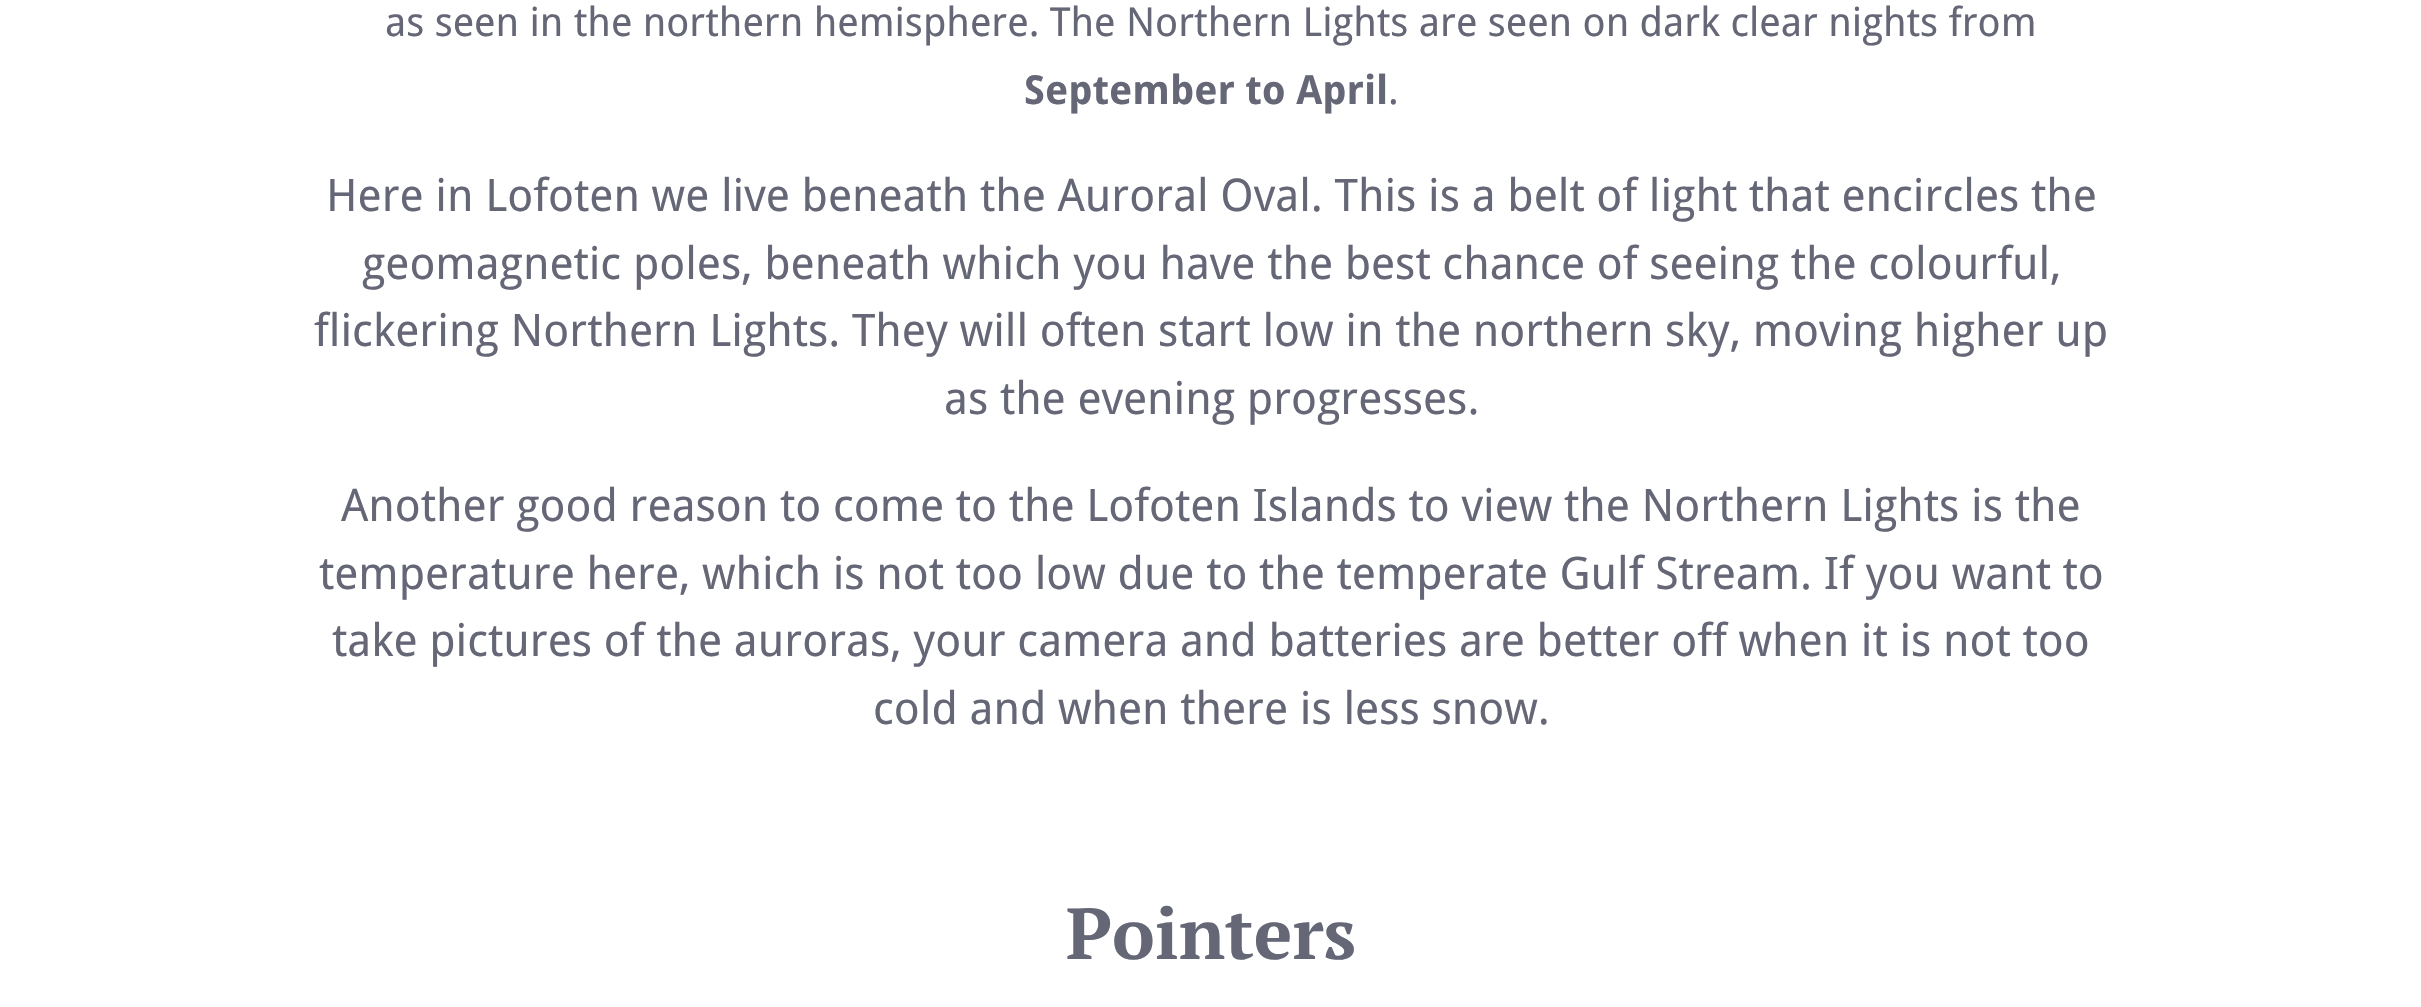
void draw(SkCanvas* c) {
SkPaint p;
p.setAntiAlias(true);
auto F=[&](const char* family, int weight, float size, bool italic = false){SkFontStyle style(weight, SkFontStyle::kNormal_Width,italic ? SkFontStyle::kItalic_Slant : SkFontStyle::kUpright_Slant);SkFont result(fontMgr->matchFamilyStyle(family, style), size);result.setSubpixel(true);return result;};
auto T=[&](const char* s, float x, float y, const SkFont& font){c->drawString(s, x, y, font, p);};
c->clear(0xffffffff);
auto f1 = F("Droid Sans",400,40);
p.setColor(0xff656777);
T("as seen in the northern hemisphere. The Northern Lights are seen on dark clear nights from",385,36,f1);
auto f2 = F("Droid Sans",700,40);
T("September to April",1024,104,f2);
T(".",1388,104,f1);
auto f3 = F("Droid Sans",400,45);
T("Here in Lofoten we live beneath the Auroral Oval. This is a belt of light that encircles the",326,211,f3);
T("geomagnetic poles, beneath which you have the best chance of seeing the colourful,",362,279,f3);
T("flickering Northern Lights. They will often start low in the northern sky, moving higher up",314,346,f3);
T("as the evening progresses.",944,414,f3);
T("Another good reason to come to the Lofoten Islands to view the Northern Lights is the",341,521,f3);
T("temperature here, which is not too low due to the temperate Gulf Stream. If you want to",319,589,f3);
T("take pictures of the auroras, your camera and batteries are better off when it is not too",332,656,f3);
T("cold and when there is less snow.",873,724,f3);
auto f4 = F("PT Serif",700,72);
T("Pointers",1066,959,f4);
}
